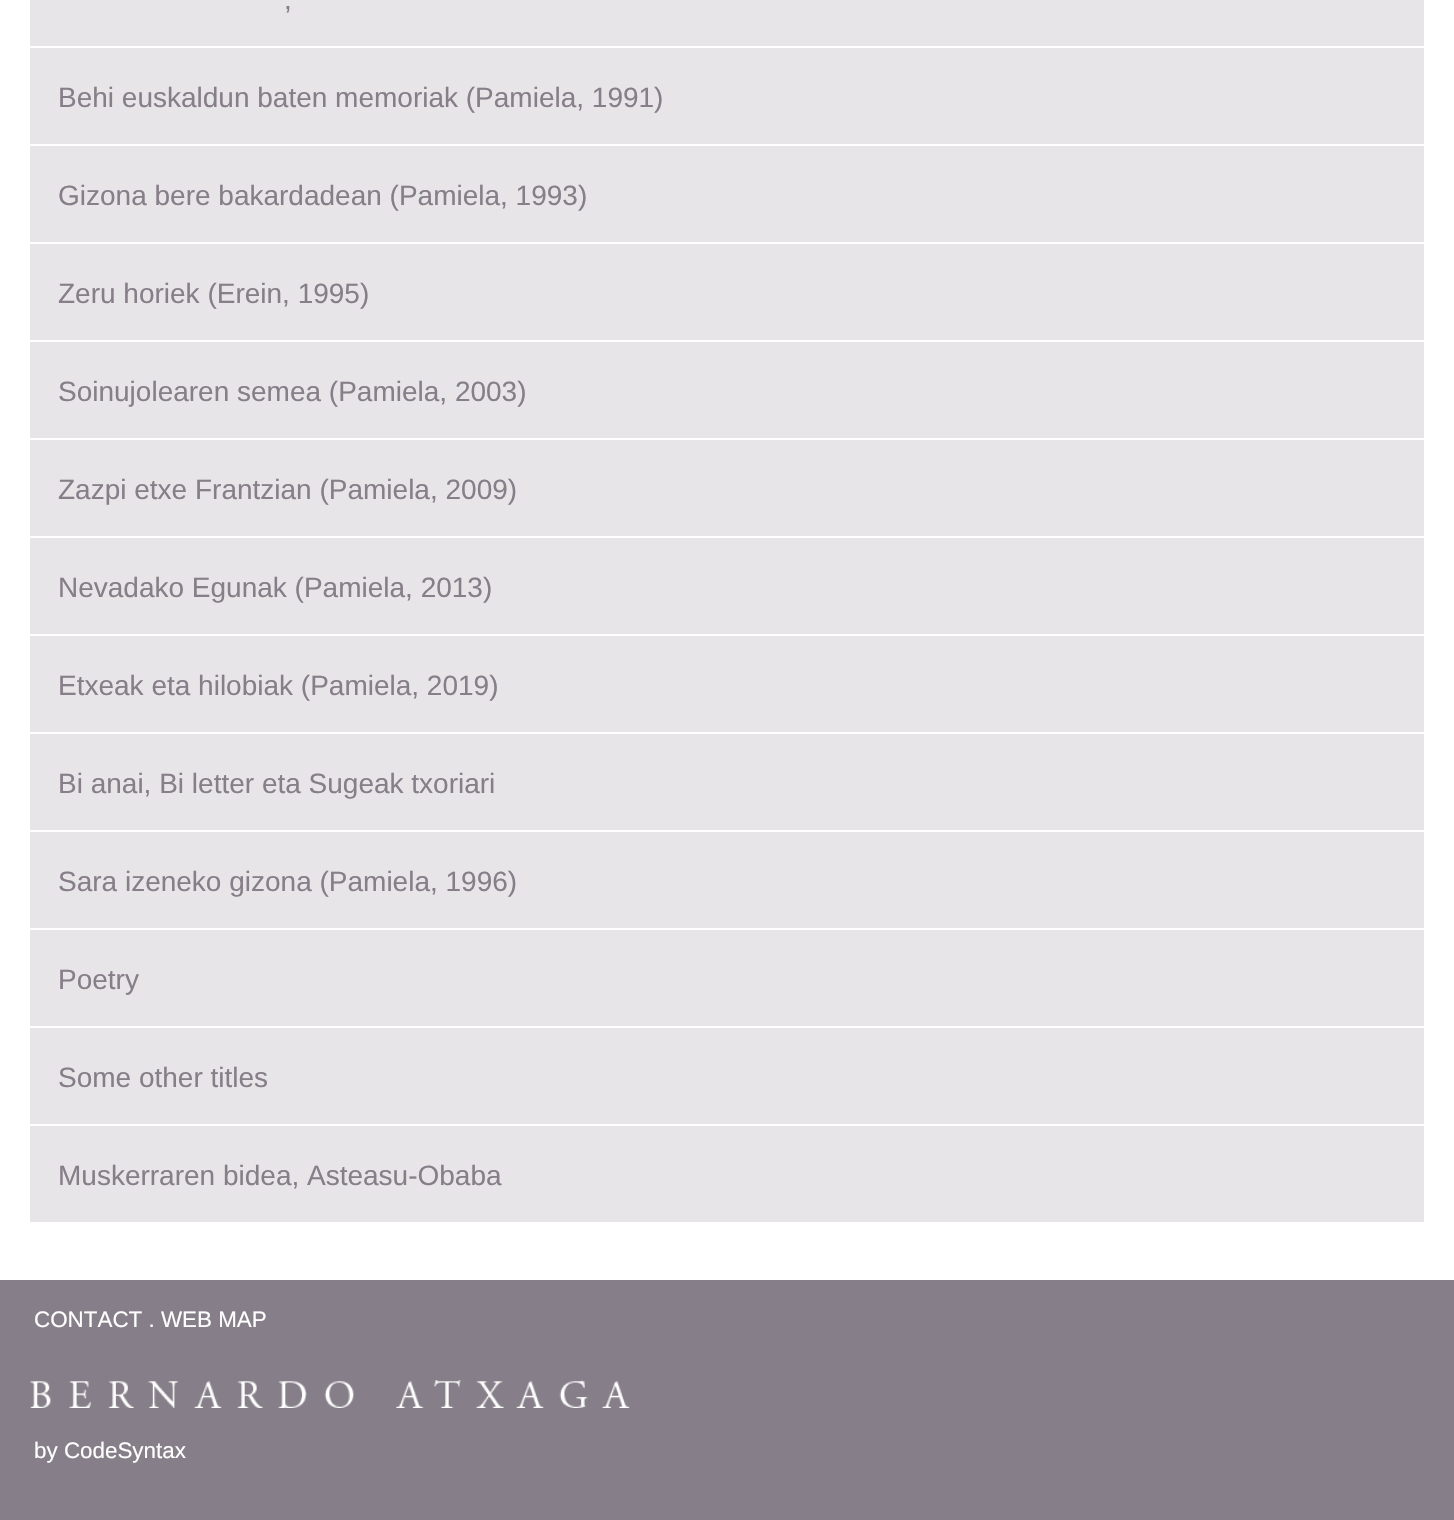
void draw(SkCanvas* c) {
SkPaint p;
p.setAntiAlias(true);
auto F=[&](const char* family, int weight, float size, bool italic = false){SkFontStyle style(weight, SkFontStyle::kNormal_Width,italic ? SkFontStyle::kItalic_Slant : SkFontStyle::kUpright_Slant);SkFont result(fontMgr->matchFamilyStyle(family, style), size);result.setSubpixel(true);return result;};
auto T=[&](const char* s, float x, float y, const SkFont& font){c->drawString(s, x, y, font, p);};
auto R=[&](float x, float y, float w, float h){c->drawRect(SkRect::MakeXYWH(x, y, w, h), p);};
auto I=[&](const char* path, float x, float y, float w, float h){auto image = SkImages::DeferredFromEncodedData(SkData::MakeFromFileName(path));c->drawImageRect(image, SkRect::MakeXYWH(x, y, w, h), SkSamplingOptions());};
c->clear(0xffffffff);
p.setColor(0xffe7e5e7);
R(30,0,1394,46);
auto f1 = F("Liberation Sans",400,28);
p.setColor(0xff867e88);
T(",",284,9,f1);
p.setColor(0xffe7e5e7);
R(30,48,1394,96);
p.setColor(0xff867e88);
T("Behi euskaldun baten memoriak (Pamiela, 1991)",58,107,f1);
p.setColor(0xffe7e5e7);
R(30,146,1394,96);
p.setColor(0xff867e88);
T("Gizona bere bakardadean (Pamiela, 1993)",58,205,f1);
p.setColor(0xffe7e5e7);
R(30,244,1394,96);
p.setColor(0xff867e88);
T("Zeru horiek (Erein, 1995)",58,303,f1);
p.setColor(0xffe7e5e7);
R(30,342,1394,96);
p.setColor(0xff867e88);
T("Soinujolearen semea (Pamiela, 2003)",58,401,f1);
p.setColor(0xffe7e5e7);
R(30,440,1394,96);
p.setColor(0xff867e88);
T("Zazpi etxe Frantzian (Pamiela, 2009)",58,499,f1);
p.setColor(0xffe7e5e7);
R(30,538,1394,96);
p.setColor(0xff867e88);
T("Nevadako Egunak (Pamiela, 2013)",58,597,f1);
p.setColor(0xffe7e5e7);
R(30,636,1394,96);
p.setColor(0xff867e88);
T("Etxeak eta hilobiak (Pamiela, 2019)",58,695,f1);
p.setColor(0xffe7e5e7);
R(30,734,1394,96);
p.setColor(0xff867e88);
T("Bi anai, Bi letter eta Sugeak txoriari",58,793,f1);
p.setColor(0xffe7e5e7);
R(30,832,1394,96);
p.setColor(0xff867e88);
T("Sara izeneko gizona (Pamiela, 1996)",58,891,f1);
p.setColor(0xffe7e5e7);
R(30,930,1394,96);
p.setColor(0xff867e88);
T("Poetry",58,989,f1);
p.setColor(0xffe7e5e7);
R(30,1028,1394,96);
p.setColor(0xff867e88);
T("Some other titles",58,1087,f1);
p.setColor(0xffe7e5e7);
R(30,1126,1394,96);
p.setColor(0xff867e88);
T("Muskerraren bidea, Asteasu-Obaba",58,1185,f1);
R(0,1280,1454,240);
I("1.png",30,1380,600,28);
auto f2 = F("Liberation Sans",400,22.4);
p.setColor(0xffffffff);
T("CONTACT . WEB MAP",34,1327,f2);
T("by CodeSyntax",34,1458,f2);
}
